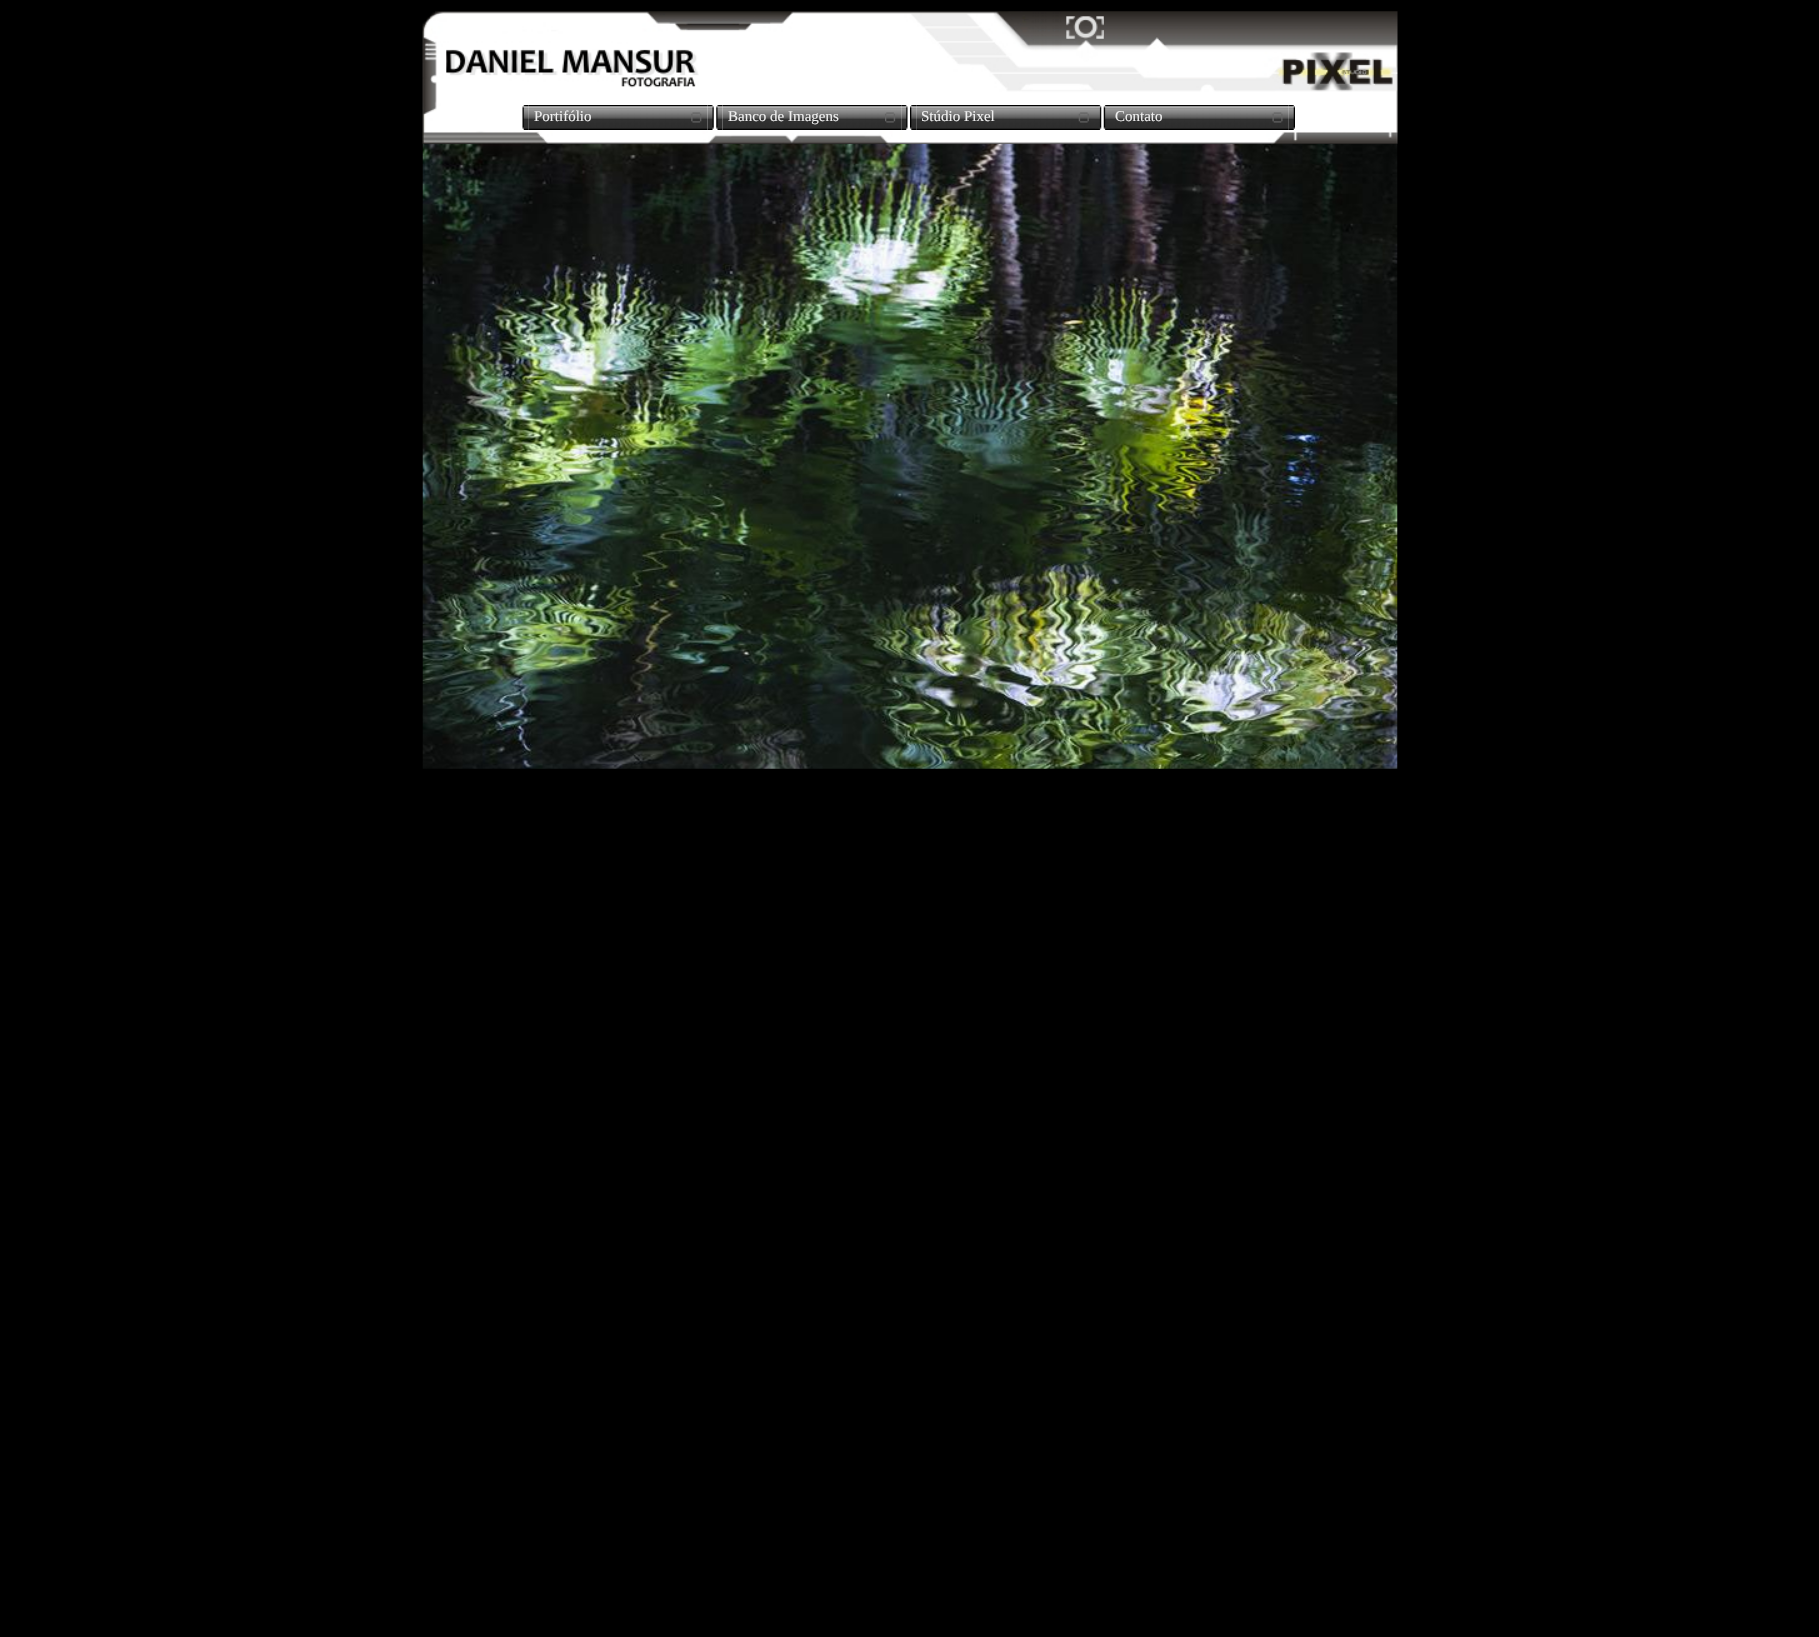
void draw(SkCanvas* c) {
SkPaint p;
p.setAntiAlias(true);
auto F=[&](const char* family, int weight, float size, bool italic = false){SkFontStyle style(weight, SkFontStyle::kNormal_Width,italic ? SkFontStyle::kItalic_Slant : SkFontStyle::kUpright_Slant);SkFont result(fontMgr->matchFamilyStyle(family, style), size);result.setSubpixel(true);return result;};
auto T=[&](const char* s, float x, float y, const SkFont& font){c->drawString(s, x, y, font, p);};
auto I=[&](const char* path, float x, float y, float w, float h){auto image = SkImages::DeferredFromEncodedData(SkData::MakeFromFileName(path));c->drawImageRect(image, SkRect::MakeXYWH(x, y, w, h), SkSamplingOptions());};
c->clear(0xff000000);
I("1.png",422,11,976,133);
I("2.png",1066,16,38,23);
I("3.png",446,49,253,39);
I("4.png",707,105,7,25);
I("5.png",522,105,7,25);
I("6.png",528,105,180,25);
auto f1 = F("Liberation Serif",400,15);
p.setColor(0xffefefef);
T("Portifólio",534,121,f1);
I("7.png",691,112,11,11);
I("8.png",901,105,7,25);
I("9.png",716,105,7,25);
I("10.png",722,105,180,25);
T("Banco de Imagens",728,121,f1);
I("11.png",885,112,11,11);
I("12.png",1095,105,7,25);
I("13.png",910,105,7,25);
I("14.png",916,105,179,25);
T("Stúdio Pixel",921,121,f1);
I("15.png",1078,112,11,11);
I("16.png",1288,105,7,25);
I("17.png",1103,105,7,25);
I("18.png",1110,105,179,25);
T("Contato",1115,121,f1);
I("19.png",1272,112,11,11);
I("21.png",422,144,976,625);
I("20.png",422,143,976,626);
}
